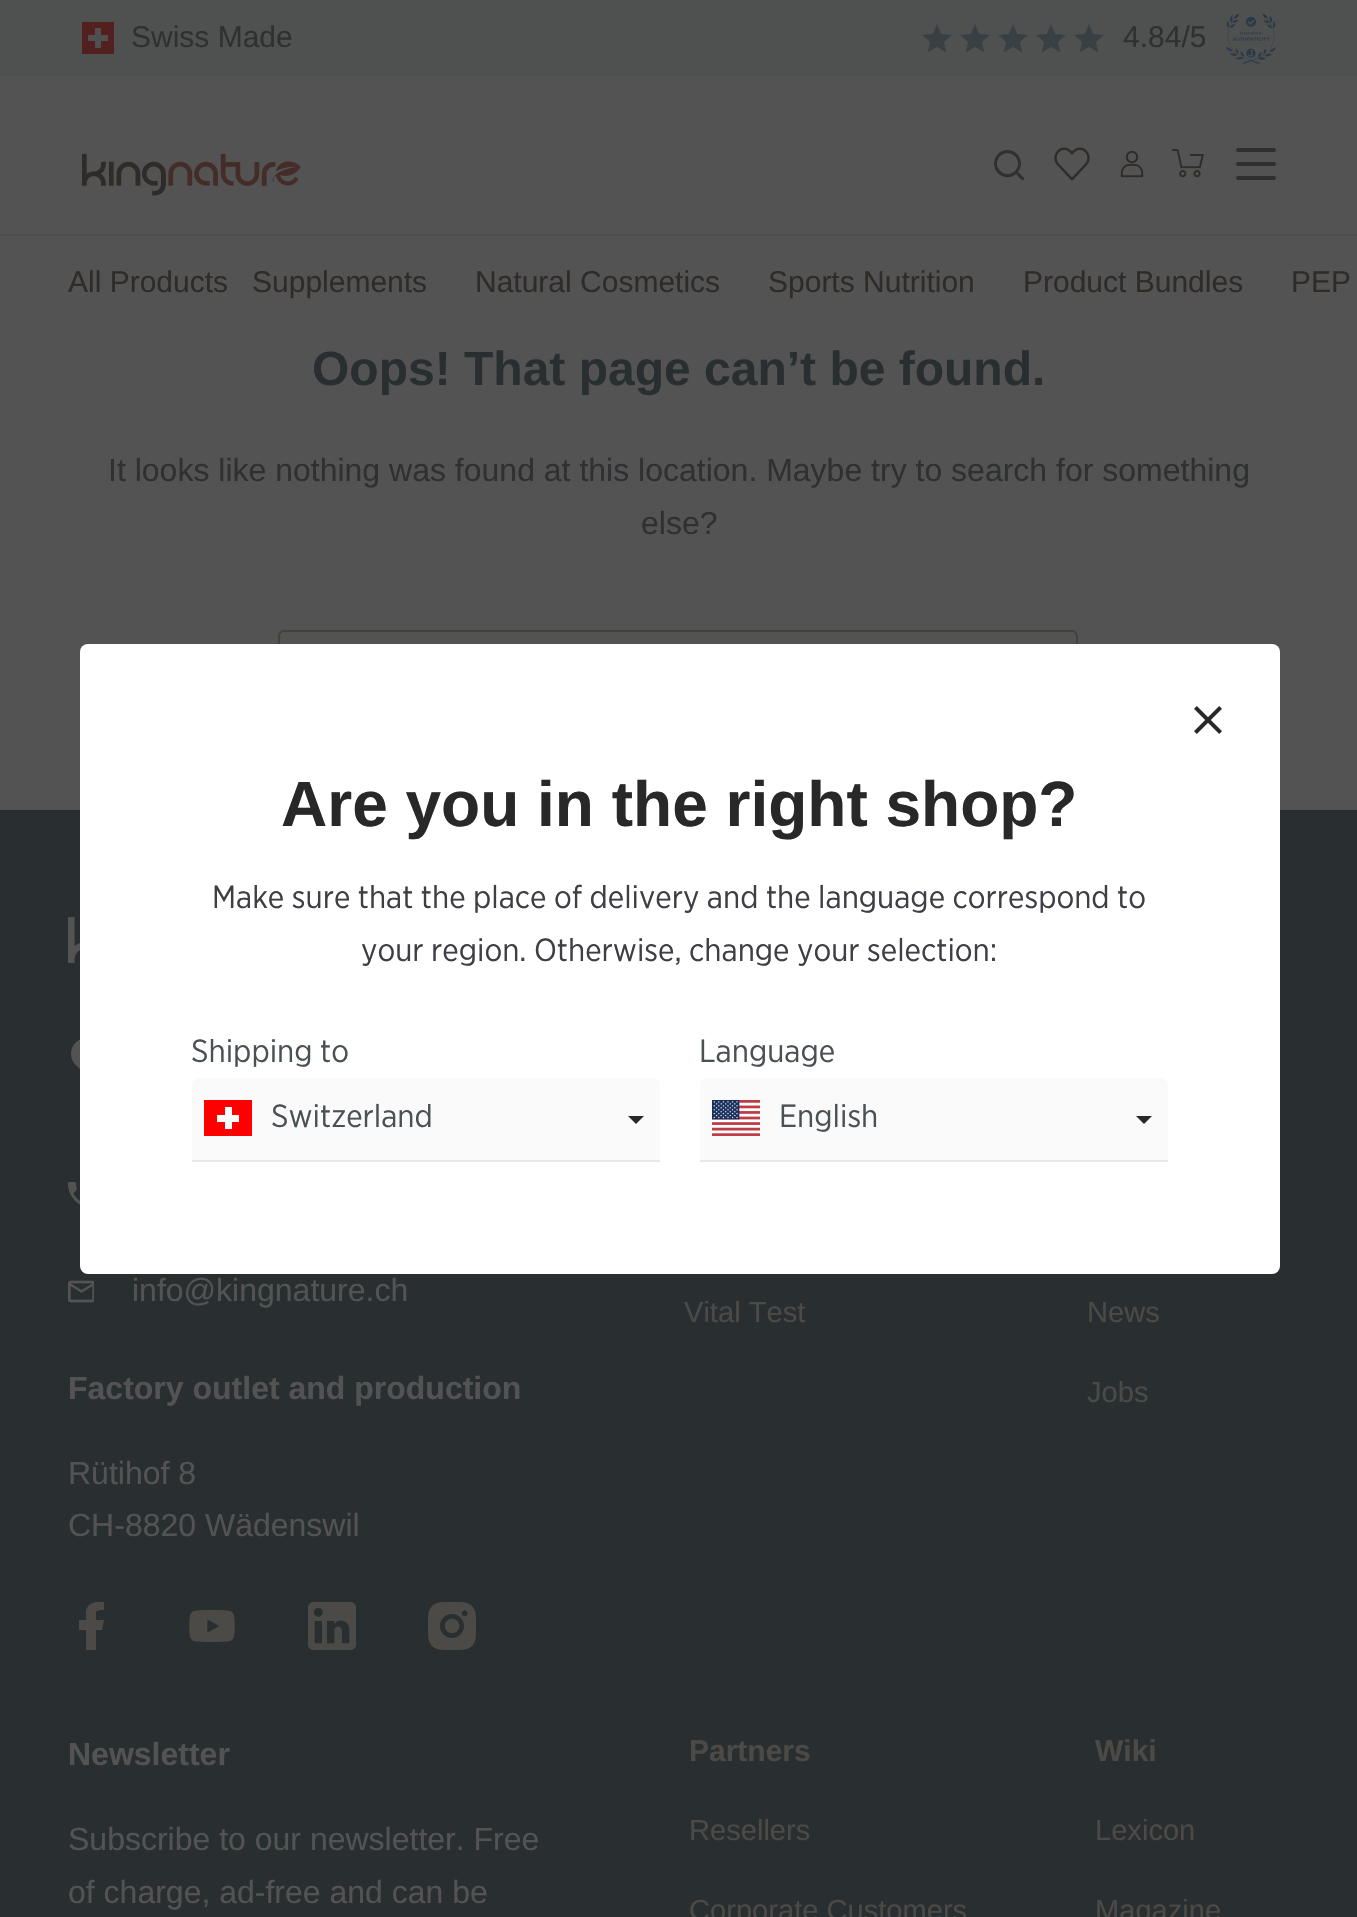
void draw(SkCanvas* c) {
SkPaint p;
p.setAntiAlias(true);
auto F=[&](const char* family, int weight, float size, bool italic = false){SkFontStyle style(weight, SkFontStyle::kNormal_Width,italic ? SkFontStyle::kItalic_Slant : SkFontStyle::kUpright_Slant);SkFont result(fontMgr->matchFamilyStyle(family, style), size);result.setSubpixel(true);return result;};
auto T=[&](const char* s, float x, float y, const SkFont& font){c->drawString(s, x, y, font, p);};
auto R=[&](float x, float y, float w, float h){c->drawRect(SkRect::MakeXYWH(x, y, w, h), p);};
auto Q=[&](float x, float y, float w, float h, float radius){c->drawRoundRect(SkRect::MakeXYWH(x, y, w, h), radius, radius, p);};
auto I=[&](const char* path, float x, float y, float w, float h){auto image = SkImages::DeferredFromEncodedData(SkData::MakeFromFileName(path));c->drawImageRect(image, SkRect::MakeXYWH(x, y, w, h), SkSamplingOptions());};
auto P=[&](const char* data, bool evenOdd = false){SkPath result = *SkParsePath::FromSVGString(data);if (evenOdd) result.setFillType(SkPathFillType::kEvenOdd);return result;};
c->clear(0xff535353);
p.setColor(0xff4f5050);
R(0,0,1357,76);
I("1.png",82,22,32,32);
auto f1 = F("Liberation Sans",400,30);
p.setColor(0xff2f3031);
T("Swiss Made",131,47,f1);
I("2.png",922,24,182,29);
T("4.84/5",1123,47,f1);
I("3.png",1226,14,50,50);
p.setColor(0xff4e4e4e);
R(0,234,1357,2);
I("4.png",82,153,219,43);
I("5.png",994,150,30,30);
I("6.png",1054,147,36,34);
I("7.png",1120,150,24,28);
I("8.png",1172,149,32,29);
p.setColor(0xff2f2f31);
Q(1236,148,40,4,2);
Q(1236,162,40,4,2);
Q(1236,176,40,4,2);
p.setColor(0xff2e2b28);
T("All Products",68,292,f1);
T("Supplements",252,292,f1);
T("Natural Cosmetics",475,292,f1);
T("Sports Nutrition",768,292,f1);
T("Product Bundles",1023,292,f1);
T("PEP",1291,292,f1);
auto f2 = F("Liberation Sans",700,48);
p.setColor(0xff292e31);
T("Oops! That page can’t be found.",312,385,f2);
auto f3 = F("Liberation Sans",400,32);
p.setColor(0xff2f3031);
T("It looks like nothing was found at this location. Maybe try to search for something",108,481,f3);
T("else?",641,534,f3);
p.setColor(0xff44413a);
c->drawPath(P("M284 630h714v80h-714c-3 0-6-3-6-6v-68c0-3 3-6 6-6zm0 2h714v76h-714c-2 0-4-2-4-4v-68c0-2 2-4 4-4z",true),p);
c->drawPath(P("M998 630h74c3 0 6 3 6 6v68c0 3-3 6-6 6h-74zm0 2h74c2 0 4 2 4 4v68c0 2-2 4-4 4h-74z",true),p);
p.setColor(0xff292e31);
R(0,810,1357,1107);
I("9.png",68,917,12,46);
I("10.png",71,1039,9,30);
I("11.png",68,1182,12,23);
I("12.png",68,1280,26,23);
p.setColor(0xff535353);
T("info@kingnature.ch",132,1301,f3);
auto f4 = F("Liberation Sans",700,32);
T("Factory outlet and production",68,1399,f4);
T("Rütihof 8",68,1484,f3);
T("CH-8820 Wädenswil",68,1536,f3);
c->save();
c->clipRect(SkRect::MakeXYWH(68,1602,48,48));
p.setColor(0xff4b4a46);
c->drawPath(P("M96 1630h6l2-10h-8c0-9-2-10 8-10v-8c-7-1-16 0-18 9v9h-7v10h7v20h10z"),p);
c->restore();
I("13.png",189,1610,46,32);
I("14.png",308,1602,48,48);
I("15.png",428,1602,48,48);
auto f5 = F("Liberation Sans",400,29.1);
T("Vital Test",684,1322,f5);
T("News",1087,1322,f5);
T("Jobs",1087,1402,f5);
p.setColor(0xff535353);
T("Newsletter",68,1765,f4);
T("Subscribe to our newsletter. Free",68,1850,f3);
T("of charge, ad-free and can be",68,1903,f3);
auto f6 = F("Liberation Sans",700,30);
p.setColor(0xff4b4a46);
T("Partners",689,1761,f6);
T("Resellers",689,1840,f5);
T("Corporate Customers",689,1920,f5);
T("Wiki",1095,1761,f6);
T("Lexicon",1095,1840,f5);
T("Magazine",1095,1920,f5);
p.setColor(0xffffffff);
Q(80,644,1200,630,8);
I("16.png",1194,706,28,28);
auto f7 = F("Liberation Sans",700,64);
p.setColor(0xff282828);
T("Are you in the right shop?",281,826,f7);
auto f8 = F("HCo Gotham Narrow",400,32);
p.setColor(0xff3e3f44);
T("Make sure that the place of delivery and the language correspond to",212,908,f8);
T("your region. Otherwise, change your selection:",361,961,f8);
p.setColor(0xff495155);
T("Shipping to",191,1062,f8);
p.setColor(0xfffafafa);
c->drawPath(P("M200 1078h452c4.5 0 8 3.5 8 8v76h-468v-76c0-4.5 3.5-8 8-8z"),p);
p.setColor(0xffe8e8e8);
R(192,1160,468,2);
p.setColor(0xffff0000);
R(204,1100,48,36);
p.setColor(0xffffffff);
R(217,1115,22,7);
R(225,1107,7,22);
p.setColor(0xff495155);
T("Switzerland",271,1127,f8);
I("17.png",628,1116,16,8);
T("Language",699,1062,f8);
p.setColor(0xfffafafa);
c->drawPath(P("M708 1078h452c4.5 0 8 3.5 8 8v76h-468v-76c0-4.5 3.5-8 8-8z"),p);
p.setColor(0xffe8e8e8);
R(700,1160,468,2);
I("18.png",712,1100,48,36);
p.setColor(0xff495155);
T("English",779,1127,f8);
I("17.png",1136,1116,16,8);
}
